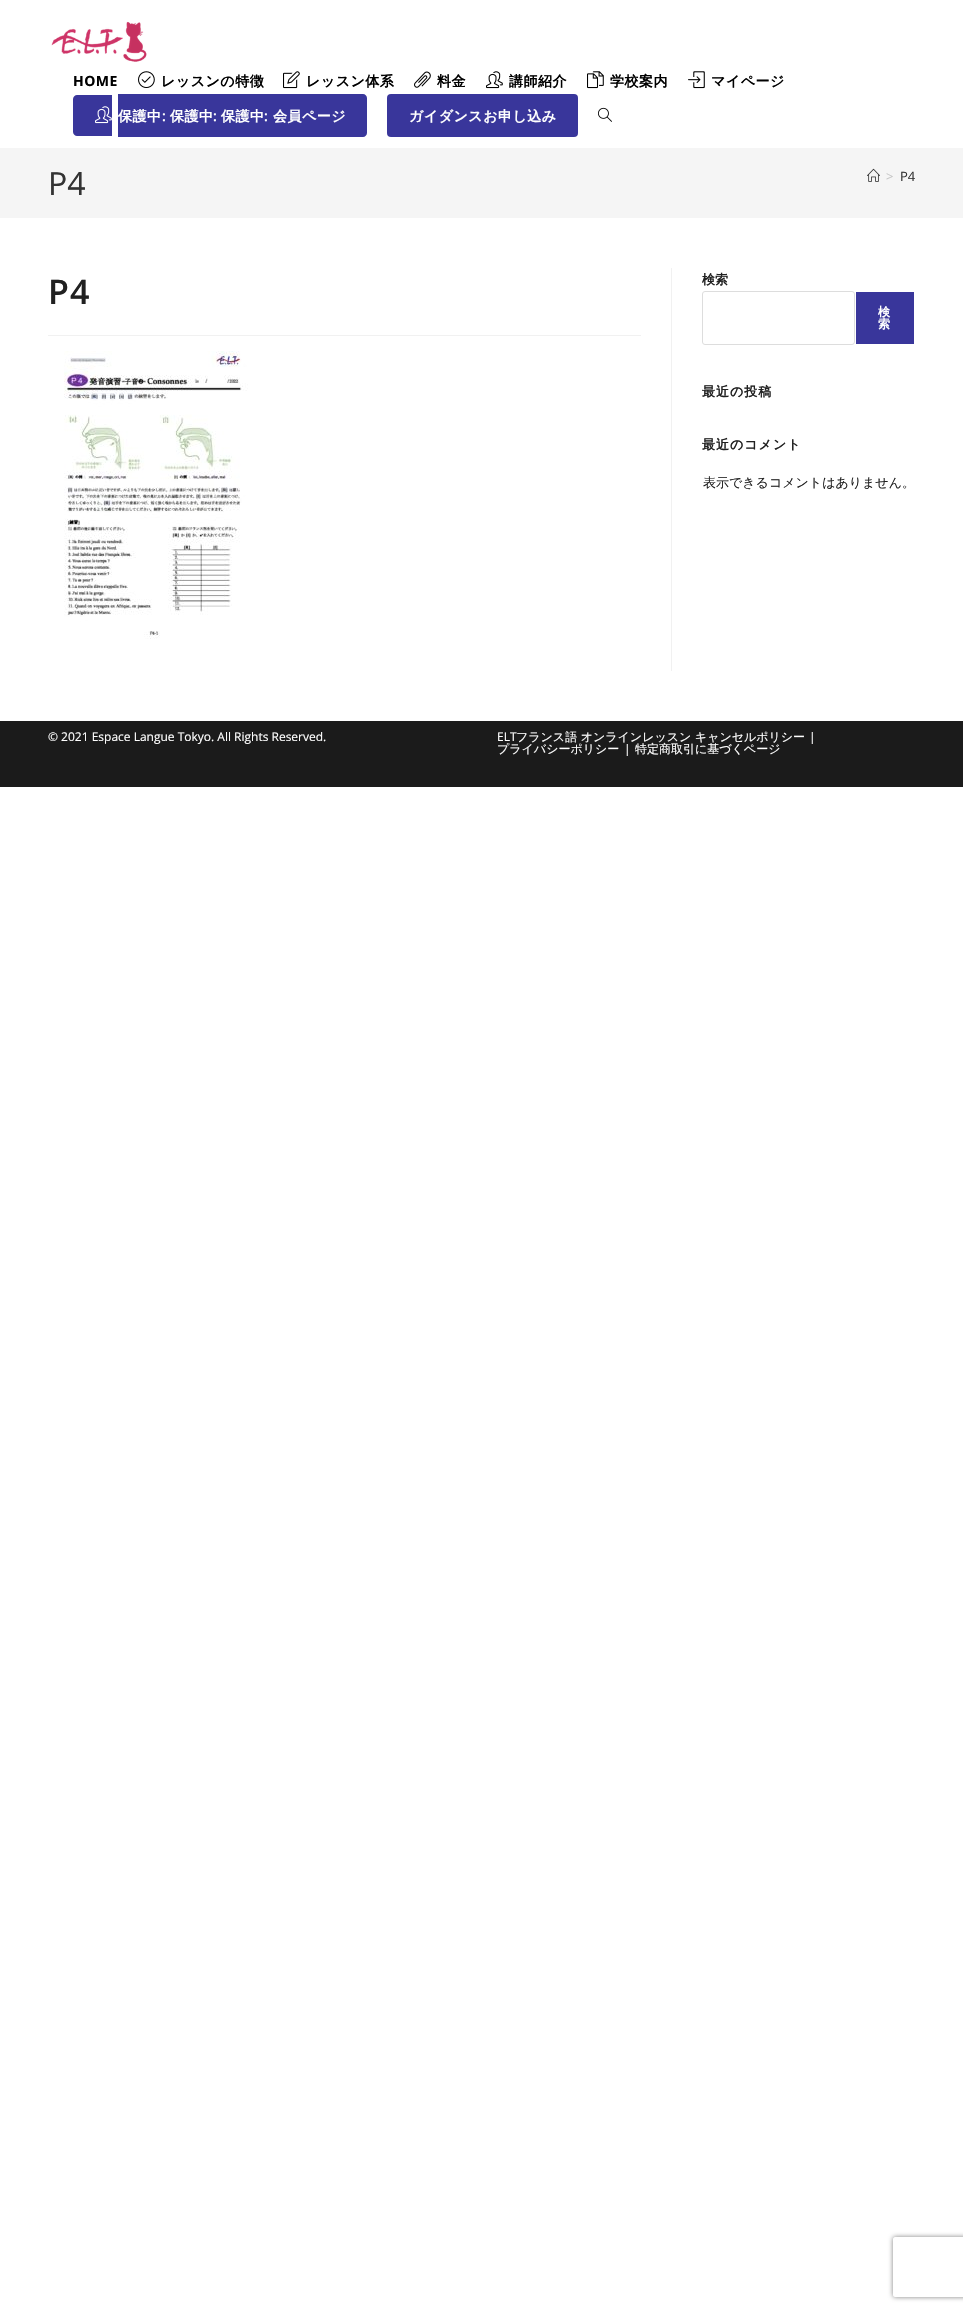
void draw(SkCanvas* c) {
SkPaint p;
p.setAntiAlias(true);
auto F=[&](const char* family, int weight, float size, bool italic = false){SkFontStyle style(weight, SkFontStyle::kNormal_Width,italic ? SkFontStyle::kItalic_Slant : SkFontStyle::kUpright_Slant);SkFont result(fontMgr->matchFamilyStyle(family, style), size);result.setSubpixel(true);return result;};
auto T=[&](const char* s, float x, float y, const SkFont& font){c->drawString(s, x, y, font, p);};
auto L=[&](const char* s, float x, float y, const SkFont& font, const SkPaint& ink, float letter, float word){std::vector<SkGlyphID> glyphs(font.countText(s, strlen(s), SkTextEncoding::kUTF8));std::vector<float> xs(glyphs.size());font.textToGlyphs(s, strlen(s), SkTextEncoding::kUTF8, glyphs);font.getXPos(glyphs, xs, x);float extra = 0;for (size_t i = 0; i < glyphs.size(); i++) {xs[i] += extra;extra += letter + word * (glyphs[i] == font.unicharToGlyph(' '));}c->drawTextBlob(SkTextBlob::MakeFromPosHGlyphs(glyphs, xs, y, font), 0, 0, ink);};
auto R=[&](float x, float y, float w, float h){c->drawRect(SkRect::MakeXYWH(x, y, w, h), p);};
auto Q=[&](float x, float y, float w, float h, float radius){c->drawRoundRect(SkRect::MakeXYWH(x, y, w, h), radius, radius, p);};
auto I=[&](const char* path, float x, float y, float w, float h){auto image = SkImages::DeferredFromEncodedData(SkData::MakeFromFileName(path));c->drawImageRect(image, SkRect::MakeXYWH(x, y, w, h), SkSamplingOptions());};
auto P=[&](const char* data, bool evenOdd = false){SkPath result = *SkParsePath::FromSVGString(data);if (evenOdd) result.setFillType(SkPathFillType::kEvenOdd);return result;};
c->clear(0xffffffff);
I("1.png",51,21,96,41);
auto f1 = F("Open Sans",700,14);
p.setColor(0xff000000);
L("HOME",73,86,f1,p,.5,0);
I("2.png",138,71,17,17);
auto f2 = F("WenQuanYi Zen Hei",700,14);
L("レッスンの特徴",161,86,f2,p,.5,0);
I("3.png",283,71,17,18);
L("レッスン体系",306,86,f2,p,.5,0);
I("4.png",414,71,17,17);
L("料金",437,86,f2,p,.5,0);
I("5.png",486,71,17,18);
L("講師紹介",509,86,f2,p,.5,0);
I("6.png",587,71,17,18);
L("学校案内",610,86,f2,p,.5,0);
I("7.png",688,71,17,18);
L("マイページ",711,86,f2,p,.5,0);
p.setColor(0xff39369b);
c->drawPath(P("M77 95h35v41h-35c-2 0-4-2-4-4v-33c0-2 2-4 4-4z"),p);
c->drawPath(P("M118 94h245c2 0 4 2 4 4v35c0 2-2 4-4 4h-245z"),p);
I("8.png",95,106,17,18);
p.setColor(0xffffffff);
L("保護中",118,121,f2,p,.5,0);
auto f3 = F("Open Sans",600,14);
L(":",162,121,f3,p,.5,0);
L("保護中",170,121,f2,p,.5,0);
L(":",213,121,f3,p,.5,0);
L("保護中",221,121,f2,p,.5,0);
L(":",264,121,f3,p,.5,0);
L("会員ページ",273,121,f2,p,.5,0);
p.setColor(0xff39369b);
Q(387,94,191,43,4);
p.setColor(0xffffffff);
L("ガイダンスお申し込み",409,121,f2,p,.5,0);
I("9.png",598,107,14,15);
p.setColor(0xfff5f5f5);
R(0,148,963,70);
auto f4 = F("Open Sans",400,32);
p.setColor(0xff333333);
T("P4",48,195,f4);
I("10.png",867,168,13,14);
auto f5 = F("Open Sans",400,13);
p.setColor(0xffc6c6c6);
T(">",886,181,f5);
p.setColor(0xff333333);
T("P4",900,181,f5);
p.setColor(0xfff1f1f1);
R(671,268,1,403);
R(48,335,593,1);
auto f6 = F("Open Sans",600,34);
p.setColor(0xff212121);
L("P4",48,304,f6,p,1,0);
I("11.png",64,351,184,288);
auto f7 = F("WenQuanYi Zen Hei",700,13);
T("検索",702,284,f7);
p.setStroke(true);
p.setStrokeWidth(1);
p.setColor(0xffdddddd);
c->drawRoundRect(SkRect::MakeXYWH(702.5,291.5,152,53),2.5,2.5,p);
p.setStroke(false);
p.setColor(0xff39369b);
R(856,292,58,52);
auto f8 = F("WenQuanYi Zen Hei",700,12);
p.setColor(0xffffffff);
L("検",878,316,f8,p,1,0);
L("索",878,328,f8,p,1,0);
p.setColor(0xff212121);
L("最近の投稿",702,396,f7,p,1,0);
L("最近のコメント",702,449,f7,p,1,0);
auto f9 = F("WenQuanYi Zen Hei",500,13);
T("表示できるコメントはありません。",703,487,f9);
p.setColor(0xff1b1b1b);
R(0,721,963,66);
auto f10 = F("Open Sans",400,12);
p.setColor(0xffffffff);
T("© 2021 Espace Langue Tokyo. All Rights Reserved.",48,741,f10);
T("ELT",497,741,f10);
auto f11 = F("WenQuanYi Zen Hei",500,12);
T("フランス語 オンラインレッスン キャンセルポリシー",516,741,f11);
T("|",809,741,f10);
T("プライバシーポリシー",497,753,f11);
T("|",624,753,f10);
T("特定商取引に基づくページ",635,753,f11);
c->save();
c->clipPath(P("M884 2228h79v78h-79zm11 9h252c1 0 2 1 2 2v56c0 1-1 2-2 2h-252c-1 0-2-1-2-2v-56c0-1 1-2 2-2z",true),true);
p.setColor(0xff808080);
p.setMaskFilter(SkMaskFilter::MakeBlur(kNormal_SkBlurStyle, 2.5));
c->drawRoundRect(SkRect::MakeXYWH(893,2237,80,60),2,2,p);
p.setMaskFilter(nullptr);
c->restore();
}
